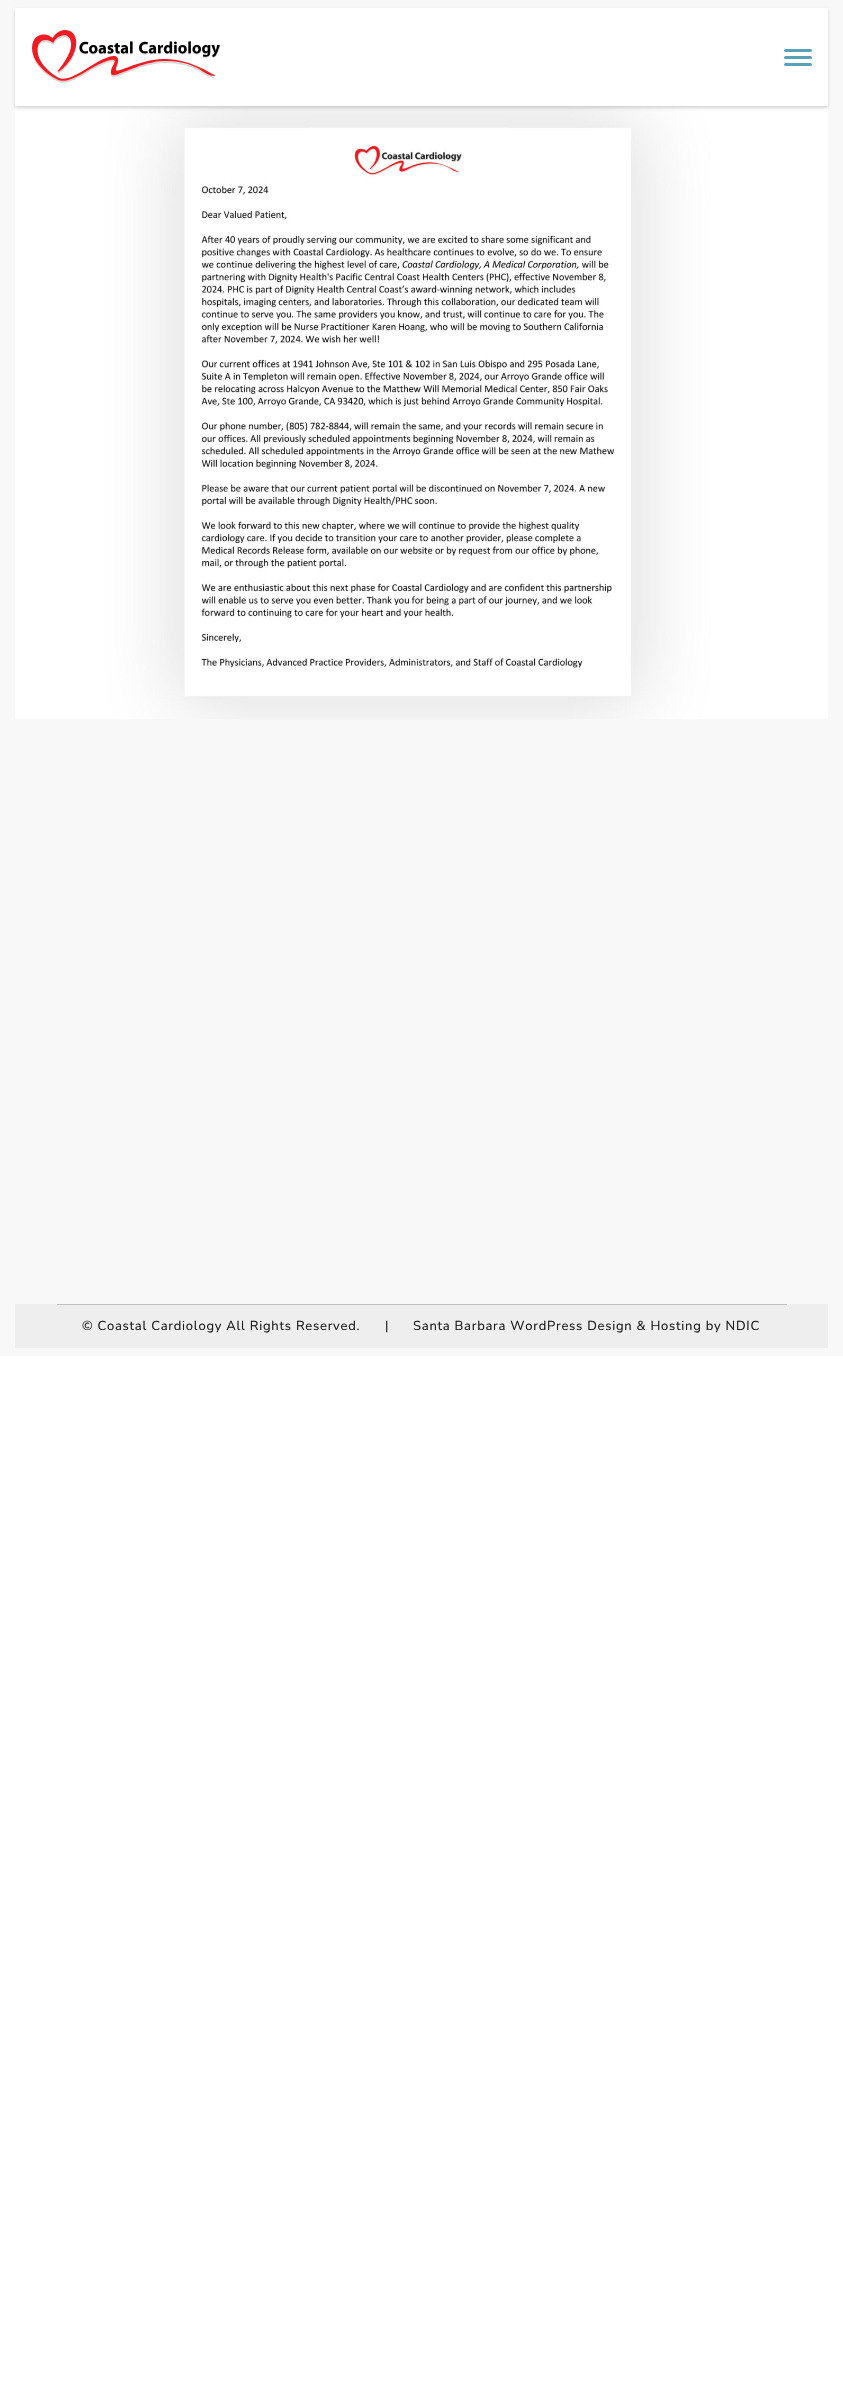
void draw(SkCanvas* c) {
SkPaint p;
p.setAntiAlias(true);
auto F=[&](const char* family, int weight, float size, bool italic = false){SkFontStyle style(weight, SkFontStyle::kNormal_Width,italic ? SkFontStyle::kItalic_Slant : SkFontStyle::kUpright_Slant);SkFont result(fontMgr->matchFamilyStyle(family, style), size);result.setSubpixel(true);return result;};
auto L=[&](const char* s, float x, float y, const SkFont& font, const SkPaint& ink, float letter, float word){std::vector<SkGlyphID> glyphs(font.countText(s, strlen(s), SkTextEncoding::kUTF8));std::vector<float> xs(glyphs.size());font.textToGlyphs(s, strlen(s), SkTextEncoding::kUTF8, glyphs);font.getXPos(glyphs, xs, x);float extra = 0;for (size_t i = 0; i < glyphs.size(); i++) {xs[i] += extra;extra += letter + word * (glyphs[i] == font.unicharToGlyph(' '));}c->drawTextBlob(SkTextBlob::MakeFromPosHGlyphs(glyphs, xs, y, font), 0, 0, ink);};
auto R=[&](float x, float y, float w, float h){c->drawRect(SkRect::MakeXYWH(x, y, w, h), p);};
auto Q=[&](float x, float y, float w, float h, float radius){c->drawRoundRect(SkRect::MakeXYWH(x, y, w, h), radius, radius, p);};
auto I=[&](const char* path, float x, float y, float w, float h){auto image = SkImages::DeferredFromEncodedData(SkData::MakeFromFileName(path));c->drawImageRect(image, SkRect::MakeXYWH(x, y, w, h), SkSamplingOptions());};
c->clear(0xffffffff);
p.setColor(0xfff8f8f8);
R(0,0,843,1356);
I("2.png",15,106,813,613);
p.setColor(0x29000000);
p.setMaskFilter(SkMaskFilter::MakeBlur(kNormal_SkBlurStyle, 1.5));
c->drawRect(SkRect::MakeXYWH(15,10,813,98),p);
p.setMaskFilter(nullptr);
p.setColor(0xffffffff);
R(15,8,813,98);
I("1.png",32,30,188,53);
p.setColor(0xff58a2b8);
Q(784,56,28,3,1.5);
Q(784,49,28,3,1.5);
Q(784,63,28,3,1.5);
p.setColor(0xffeeeeee);
R(15,1304,813,44);
p.setColor(0xffbebebe);
R(57,1304,730,1);
auto f1 = F("Nunito Sans",400,13);
p.setColor(0xff1b1b1b);
L("© Coastal Cardiology All Rights Reserved.",82,1330,f1,p,.75,0);
L("|",385,1330,f1,p,.75,0);
L("Santa Barbara WordPress Design & Hosting by NDIC",413,1330,f1,p,.75,0);
}
